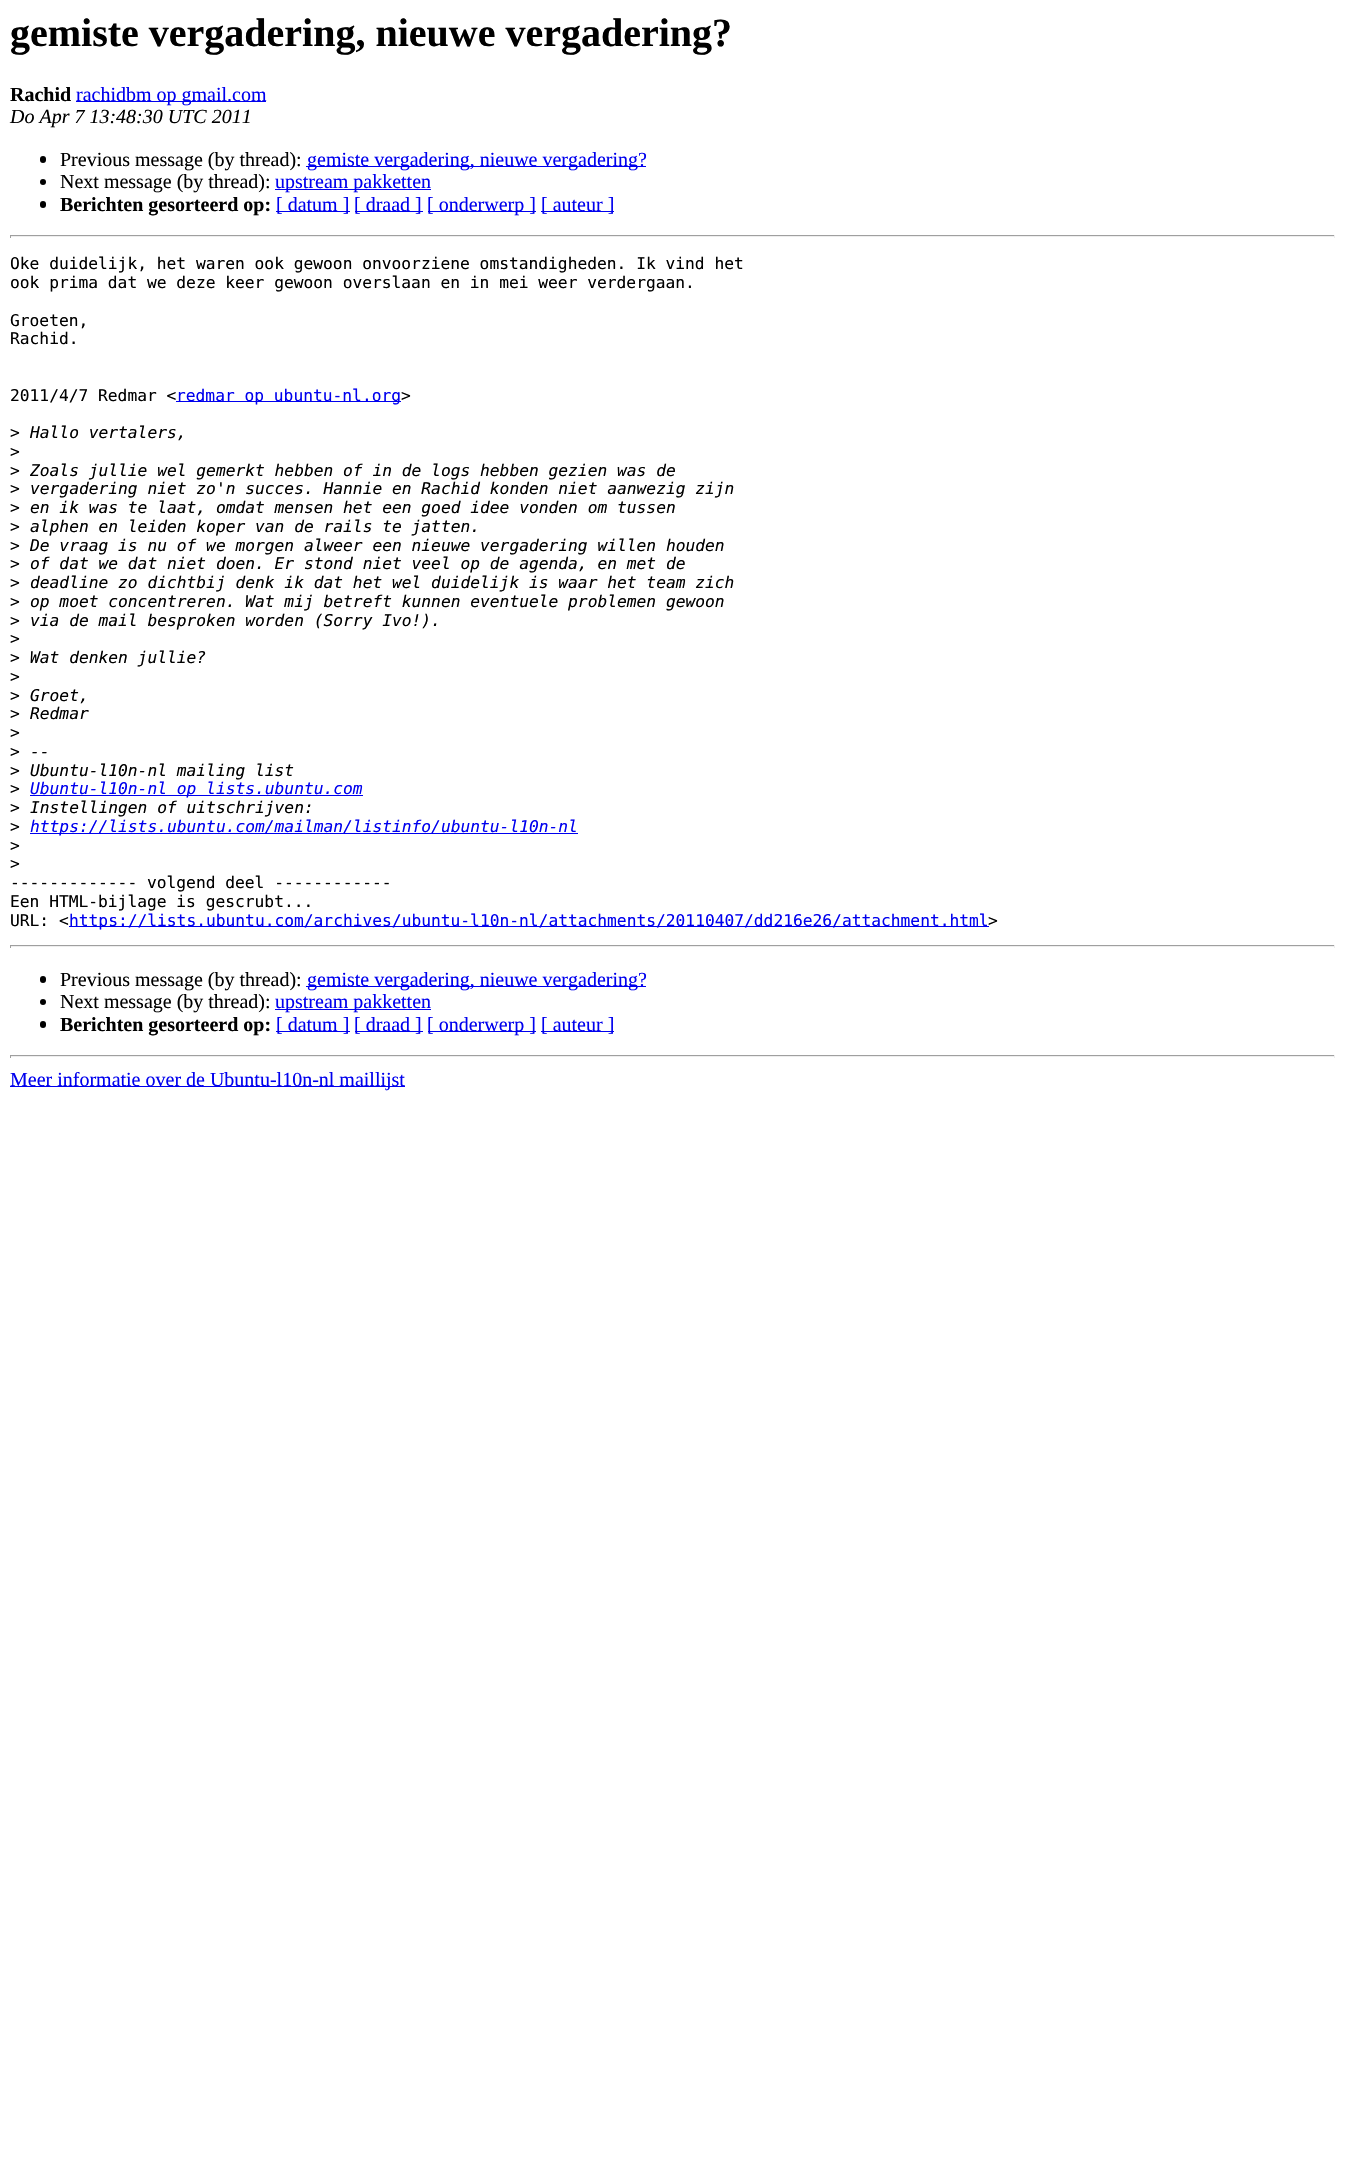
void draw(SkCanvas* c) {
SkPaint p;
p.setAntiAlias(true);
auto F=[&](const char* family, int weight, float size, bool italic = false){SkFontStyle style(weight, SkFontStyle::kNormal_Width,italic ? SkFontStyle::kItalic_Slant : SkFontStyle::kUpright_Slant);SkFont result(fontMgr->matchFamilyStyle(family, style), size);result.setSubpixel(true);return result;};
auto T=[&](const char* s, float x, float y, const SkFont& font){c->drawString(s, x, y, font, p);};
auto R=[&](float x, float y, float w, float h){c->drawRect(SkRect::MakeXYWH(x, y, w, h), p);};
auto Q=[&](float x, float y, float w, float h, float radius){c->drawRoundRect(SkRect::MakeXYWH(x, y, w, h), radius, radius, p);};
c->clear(0xffffffff);
auto f1 = F("Liberation Serif",700,40);
p.setColor(0xff000000);
T("gemiste vergadering, nieuwe vergadering?",10,46,f1);
auto f2 = F("Liberation Serif",700,20);
T("Rachid",10,101,f2);
p.setColor(0xff0000ee);
R(76,101,190,1);
auto f3 = F("Liberation Serif",400,20);
T("rachidbm op gmail.com",76,101,f3);
auto f4 = F("Liberation Serif",400,20,true);
p.setColor(0xff000000);
T("Do Apr 7 13:48:30 UTC 2011",10,123,f4);
Q(40,156,6,7,3);
T("Previous message (by thread):",60,166,f3);
p.setColor(0xff0000ee);
R(306,166,340,1);
T("gemiste vergadering, nieuwe vergadering?",307,166,f3);
p.setColor(0xff000000);
c->drawCircle(43,182,3,p);
T("Next message (by thread):",60,188,f3);
p.setColor(0xff0000ee);
R(275,189,156,1);
T("upstream pakketten",275,188,f3);
p.setColor(0xff000000);
Q(40,201,6,7,3);
T("Berichten gesorteerd op:",60,211,f2);
p.setColor(0xff0000ee);
R(276,211,74,1);
T("[ datum ]",276,211,f3);
R(355,211,68,1);
T("[ draad ]",354,211,f3);
R(428,211,108,1);
T("[ onderwerp ]",427,211,f3);
R(541,211,73,1);
T("[ auteur ]",541,211,f3);
p.setColor(0xff9f9f9f);
R(10,235,1325,1);
p.setColor(0xffeeeeee);
R(1334,235,1,3);
R(10,236,1325,1);
p.setColor(0xff9f9f9f);
R(10,235,1,3);
auto f5 = F("DejaVu Sans Mono",400,16.25);
p.setColor(0xff000000);
T("Oke duidelijk, het waren ook gewoon onvoorziene omstandigheden. Ik vind het",10,269,f5);
T("ook prima dat we deze keer gewoon overslaan en in mei weer verdergaan.",10,288,f5);
T("Groeten,",10,326,f5);
T("Rachid.",10,344,f5);
T("2011/4/7 Redmar <",10,401,f5);
p.setColor(0xff0000ee);
R(176,401,225,1);
T("redmar op ubuntu-nl.org",176,401,f5);
p.setColor(0xff000000);
T(">",401,401,f5);
T(">",10,438,f5);
auto f6 = F("DejaVu Sans Mono",400,16.25,true);
T("Hallo vertalers,",30,438,f6);
T(">",10,457,f5);
T(">",10,476,f5);
T("Zoals jullie wel gemerkt hebben of in de logs hebben gezien was de",30,476,f6);
T(">",10,494,f5);
T("vergadering niet zo'n succes. Hannie en Rachid konden niet aanwezig zijn",30,494,f6);
T(">",10,513,f5);
T("en ik was te laat, omdat mensen het een goed idee vonden om tussen",30,513,f6);
T(">",10,532,f5);
T("alphen en leiden koper van de rails te jatten.",30,532,f6);
T(">",10,551,f5);
T("De vraag is nu of we morgen alweer een nieuwe vergadering willen houden",30,551,f6);
T(">",10,569,f5);
T("of dat we dat niet doen. Er stond niet veel op de agenda, en met de",30,569,f6);
T(">",10,588,f5);
T("deadline zo dichtbij denk ik dat het wel duidelijk is waar het team zich",30,588,f6);
T(">",10,607,f5);
T("op moet concentreren. Wat mij betreft kunnen eventuele problemen gewoon",30,607,f6);
T(">",10,626,f5);
T("via de mail besproken worden (Sorry Ivo!).",30,626,f6);
T(">",10,644,f5);
T(">",10,663,f5);
T("Wat denken jullie?",30,663,f6);
T(">",10,682,f5);
T(">",10,701,f5);
T("Groet,",30,701,f6);
T(">",10,719,f5);
T("Redmar",30,719,f6);
T(">",10,738,f5);
T(">",10,757,f5);
T("--",30,757,f6);
T(">",10,776,f5);
T("Ubuntu-l10n-nl mailing list",30,776,f6);
T(">",10,794,f5);
p.setColor(0xff0000ee);
R(30,795,333,1);
T("Ubuntu-l10n-nl op lists.ubuntu.com",30,794,f6);
p.setColor(0xff000000);
T(">",10,813,f5);
T("Instellingen of uitschrijven:",30,813,f6);
T(">",10,832,f5);
p.setColor(0xff0000ee);
R(30,833,548,1);
T("https://lists.ubuntu.com/mailman/listinfo/ubuntu-l10n-nl",30,832,f6);
p.setColor(0xff000000);
T(">",10,851,f5);
T(">",10,869,f5);
T("------------- volgend deel ------------",10,888,f5);
T("Een HTML-bijlage is gescrubt...",10,907,f5);
T("URL: <",10,926,f5);
p.setColor(0xff0000ee);
R(69,926,920,1);
T("https://lists.ubuntu.com/archives/ubuntu-l10n-nl/attachments/20110407/dd216e26/attachment.html",69,926,f5);
p.setColor(0xff000000);
T(">",988,926,f5);
p.setColor(0xff9f9f9f);
R(10,945,1325,1);
p.setColor(0xffeeeeee);
R(1334,945,1,3);
R(10,946,1325,1);
p.setColor(0xff9f9f9f);
R(10,945,1,3);
p.setColor(0xff000000);
Q(40,976,6,7,3);
T("Previous message (by thread):",60,986,f3);
p.setColor(0xff0000ee);
R(306,986,340,1);
T("gemiste vergadering, nieuwe vergadering?",307,986,f3);
p.setColor(0xff000000);
c->drawCircle(43,1002,3,p);
T("Next message (by thread):",60,1008,f3);
p.setColor(0xff0000ee);
R(275,1009,156,1);
T("upstream pakketten",275,1008,f3);
p.setColor(0xff000000);
Q(40,1021,6,7,3);
T("Berichten gesorteerd op:",60,1031,f2);
p.setColor(0xff0000ee);
R(276,1031,74,1);
T("[ datum ]",276,1031,f3);
R(355,1031,68,1);
T("[ draad ]",354,1031,f3);
R(428,1031,108,1);
T("[ onderwerp ]",427,1031,f3);
R(541,1031,73,1);
T("[ auteur ]",541,1031,f3);
p.setColor(0xff9f9f9f);
R(10,1055,1325,1);
p.setColor(0xffeeeeee);
R(1334,1055,1,3);
R(10,1056,1325,1);
p.setColor(0xff9f9f9f);
R(10,1055,1,3);
p.setColor(0xff0000ee);
R(10,1086,395,1);
T("Meer informatie over de Ubuntu-l10n-nl maillijst",10,1086,f3);
}
